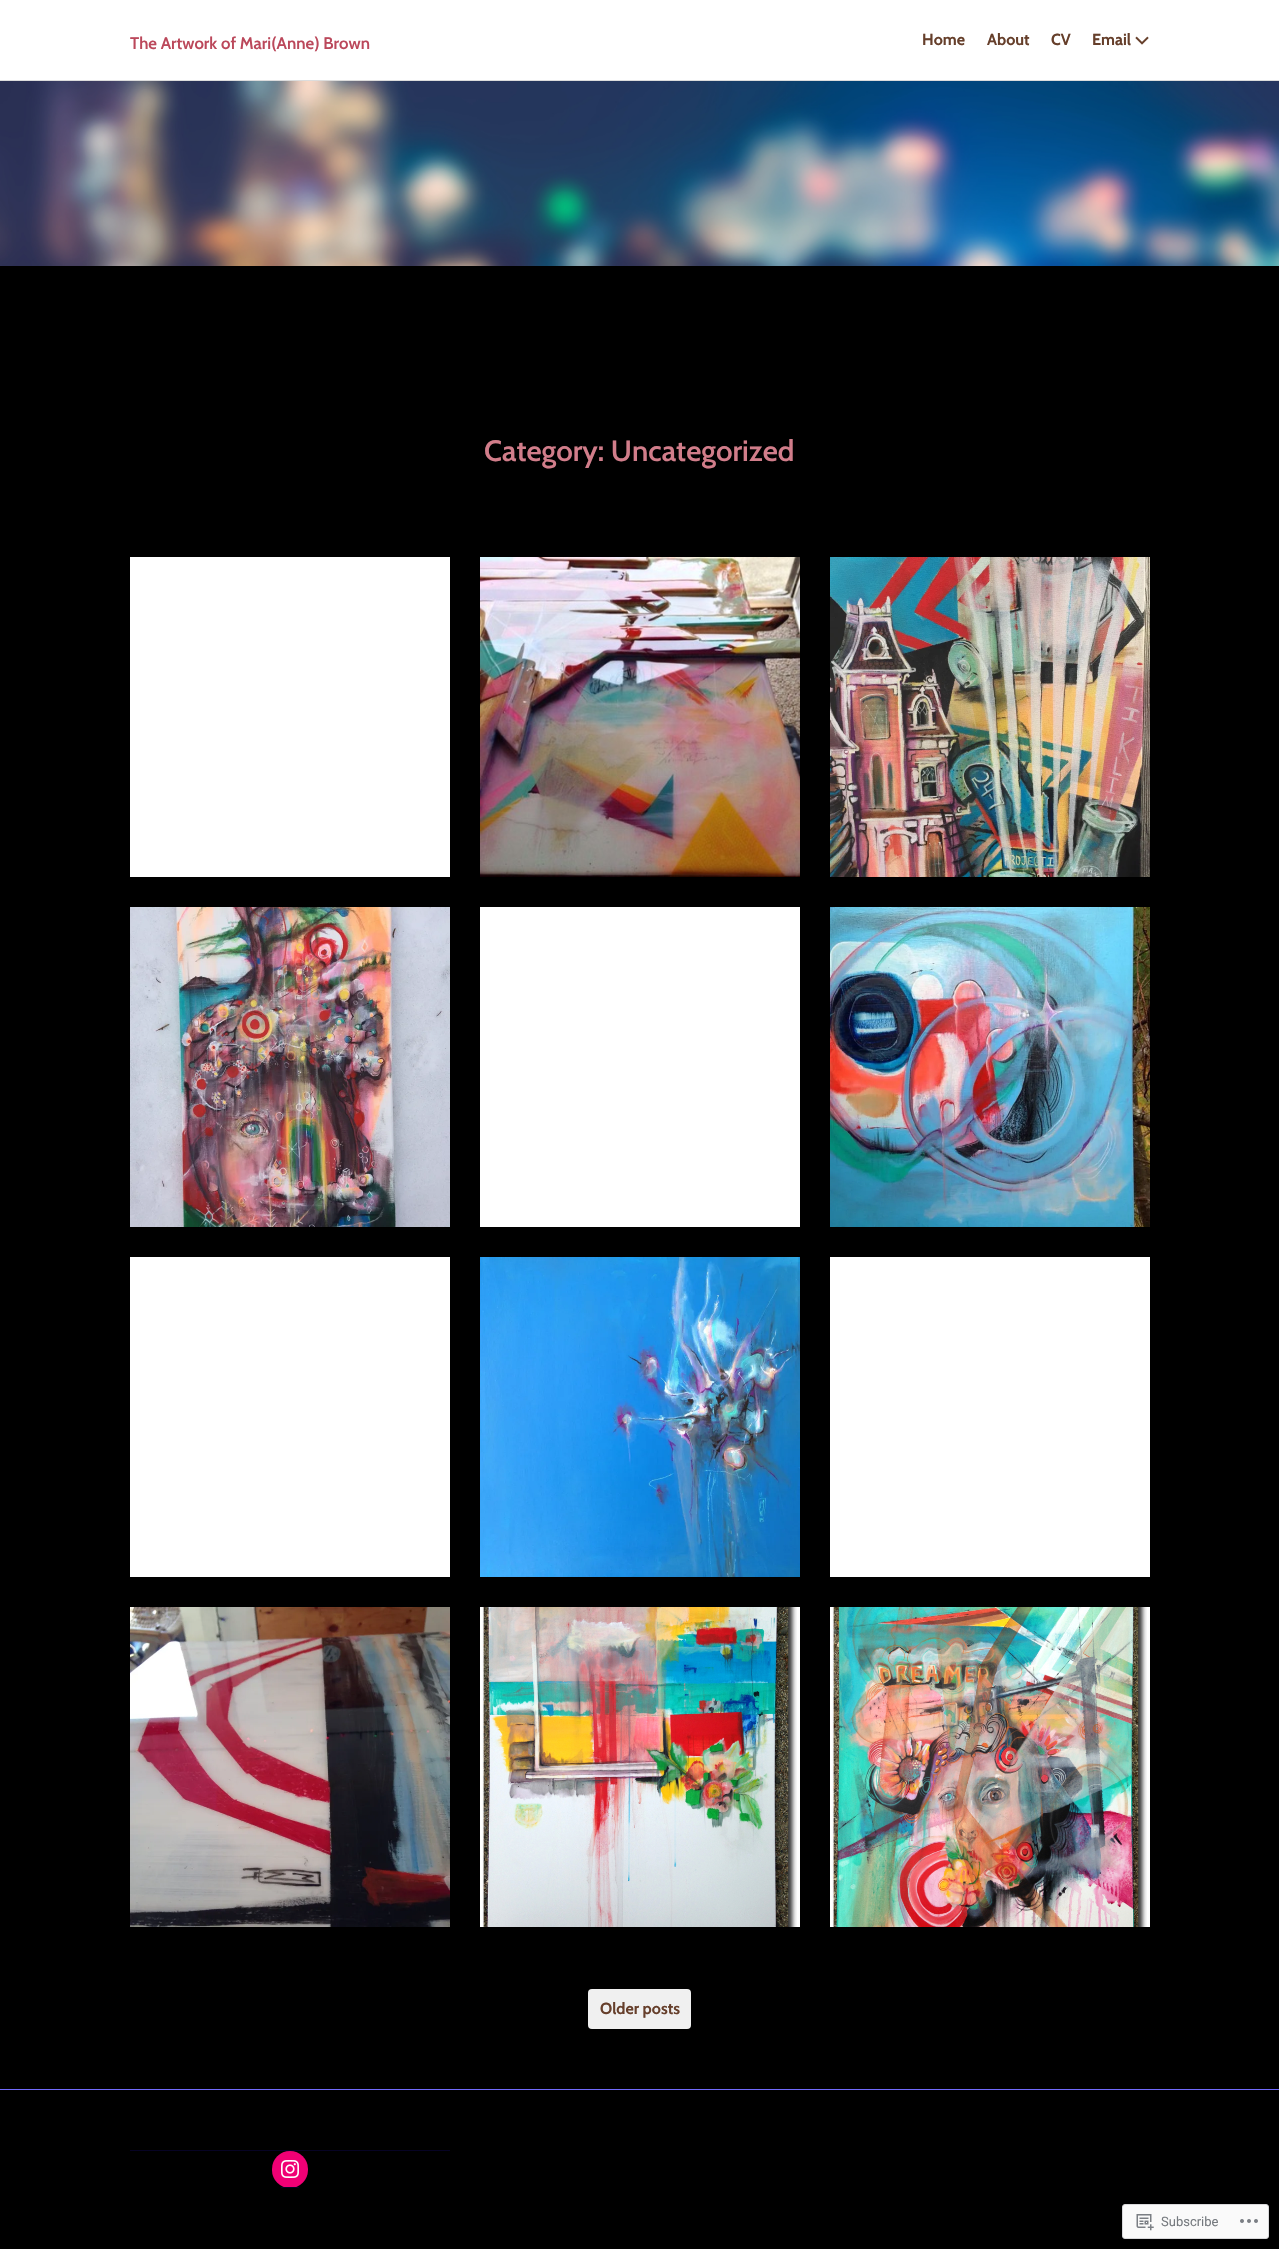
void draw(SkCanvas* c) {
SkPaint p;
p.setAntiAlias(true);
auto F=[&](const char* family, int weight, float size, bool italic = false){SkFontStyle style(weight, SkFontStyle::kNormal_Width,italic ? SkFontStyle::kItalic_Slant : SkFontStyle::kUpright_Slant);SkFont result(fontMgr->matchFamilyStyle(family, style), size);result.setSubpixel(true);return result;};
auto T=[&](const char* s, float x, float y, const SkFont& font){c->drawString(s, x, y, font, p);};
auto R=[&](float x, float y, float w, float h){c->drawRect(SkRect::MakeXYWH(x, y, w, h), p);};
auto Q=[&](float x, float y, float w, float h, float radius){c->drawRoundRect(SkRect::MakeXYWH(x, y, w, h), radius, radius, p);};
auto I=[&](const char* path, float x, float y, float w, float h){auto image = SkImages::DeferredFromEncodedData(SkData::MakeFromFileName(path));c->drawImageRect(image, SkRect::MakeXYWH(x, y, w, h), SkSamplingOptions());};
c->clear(0xff000000);
p.setColor(0xffffffff);
R(0,0,1279,80);
p.setColor(0xffdcdcdc);
R(0,80,1279,1);
auto f1 = F("Cabin",600,16.75);
p.setColor(0xffbb485b);
T("The Artwork of Mari(Anne) Brown",130,49,f1);
auto f2 = F("Cabin",700,16);
p.setColor(0xff663f2b);
T("Home",922,45,f2);
T("About",987,45,f2);
T("CV",1051,45,f2);
T("Email",1092,45,f2);
I("1.png",1135,36,14,9);
I("2.png",0,81,1279,185);
auto f3 = F("Cabin",600,29.4);
p.setColor(0xffd17d8a);
T("Category: Uncategorized",484,461,f3);
p.setColor(0xffffffff);
R(130,557,320,320);
I("3.png",480,557,320,320);
I("4.png",830,557,320,320);
I("5.png",130,907,320,320);
R(480,907,320,320);
I("6.png",830,907,320,320);
R(130,1257,320,320);
I("7.png",480,1257,320,320);
R(830,1257,320,320);
I("8.png",130,1607,320,320);
R(480,1607,320,320);
I("9.png",482,1607,315,320);
R(830,1607,320,320);
I("10.png",832,1607,315,320);
p.setColor(0xfff0f0f0);
Q(588,1989,103,40,4);
p.setColor(0xff663f2b);
T("Older posts",600,2014,f2);
p.setColor(0xff716afa);
R(0,2089,1279,1);
p.setColor(0xff060324);
R(130,2150,320,1);
p.setColor(0xfff00075);
Q(272,2151,36,37,18);
p.setColor(0xff060324);
R(281,2187,18,1);
I("11.png",281,2160,18,18);
p.setColor(0xfffafafa);
c->drawRoundRect(SkRect::MakeXYWH(1122.5,2204.5,146,34),2.5,2.5,p);
p.setStroke(true);
p.setStrokeWidth(1);
p.setColor(0xffd8d8da);
c->drawRoundRect(SkRect::MakeXYWH(1122.5,2204.5,146,34),2.5,2.5,p);
I("12.png",1136,2214,18,17);
auto f4 = F("Roboto",400,13);
p.setStroke(false);
p.setColor(0xff767a7f);
T("Subscribe",1161,2226,f4);
I("13.png",1240,2219,18,4);
}
